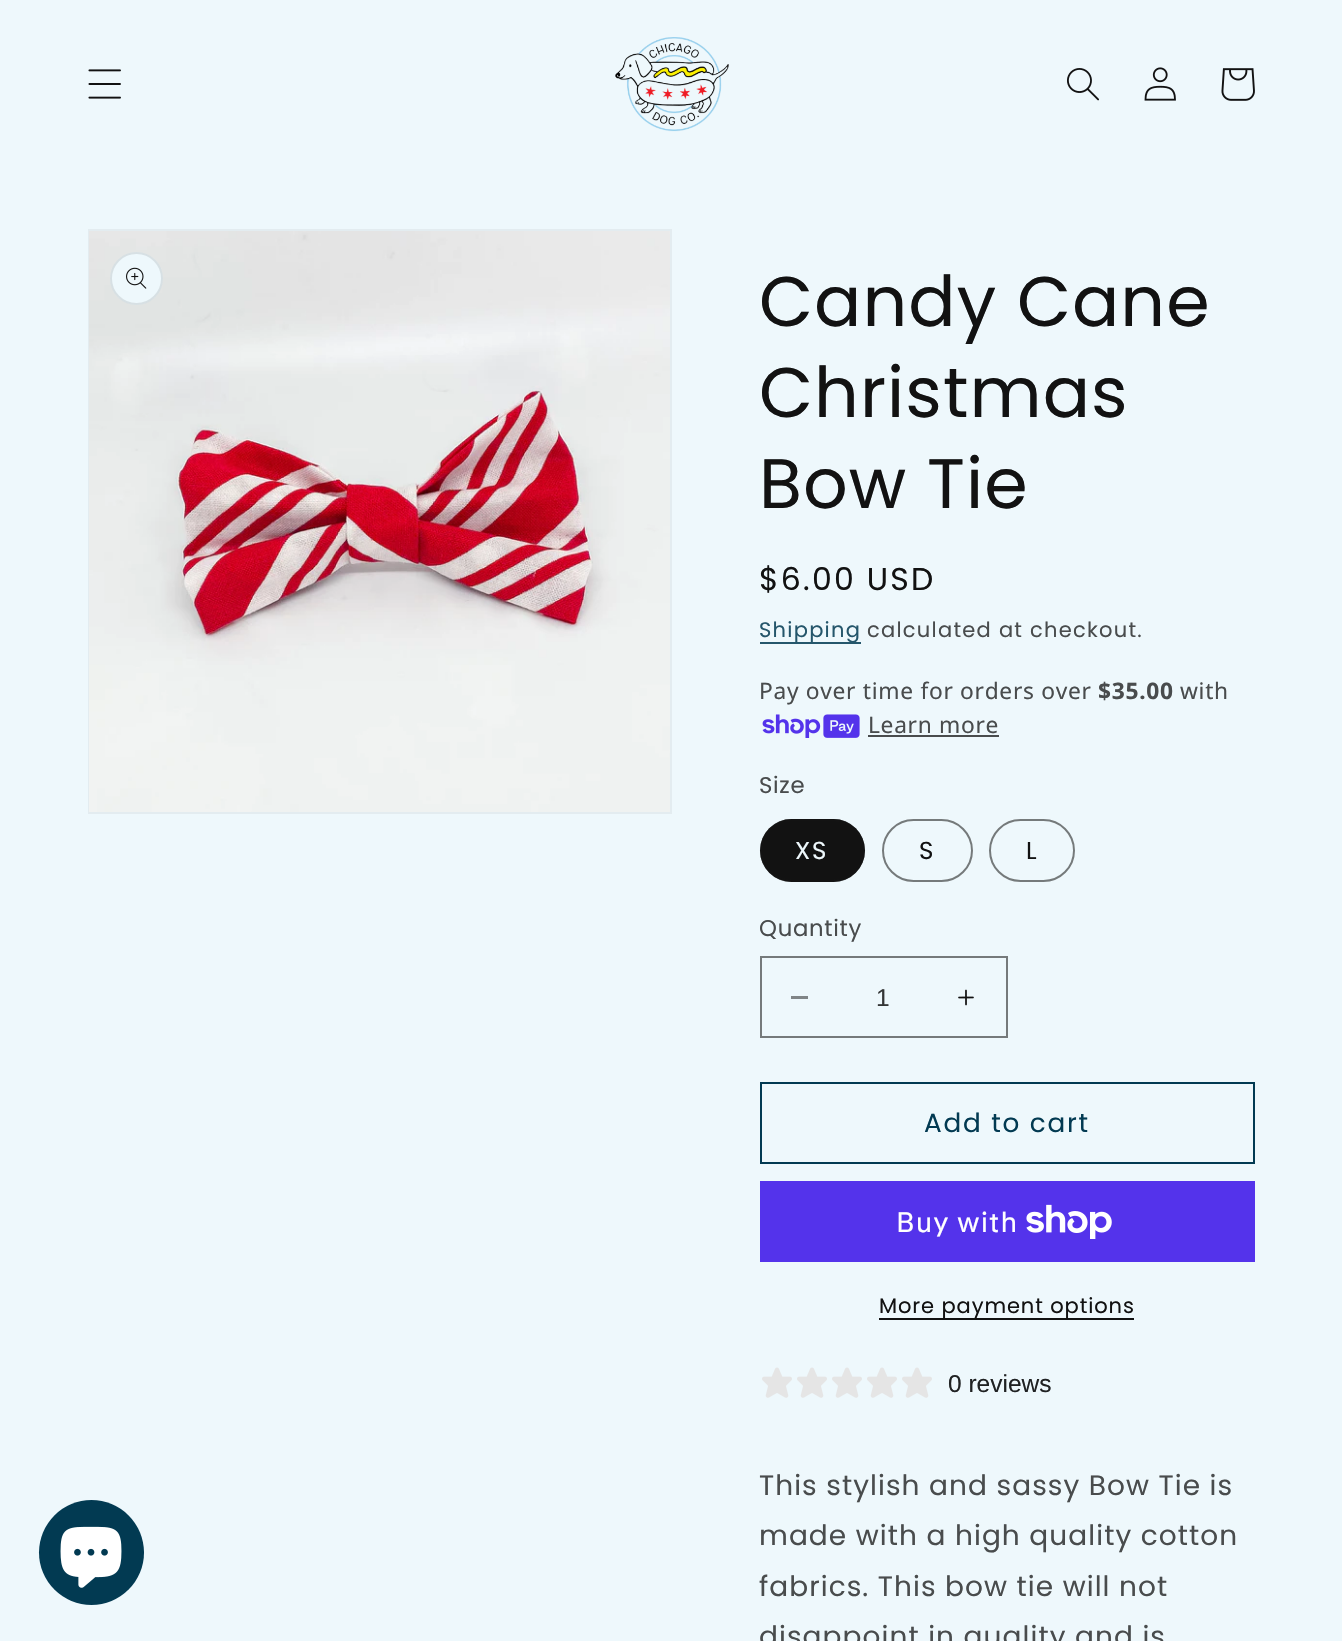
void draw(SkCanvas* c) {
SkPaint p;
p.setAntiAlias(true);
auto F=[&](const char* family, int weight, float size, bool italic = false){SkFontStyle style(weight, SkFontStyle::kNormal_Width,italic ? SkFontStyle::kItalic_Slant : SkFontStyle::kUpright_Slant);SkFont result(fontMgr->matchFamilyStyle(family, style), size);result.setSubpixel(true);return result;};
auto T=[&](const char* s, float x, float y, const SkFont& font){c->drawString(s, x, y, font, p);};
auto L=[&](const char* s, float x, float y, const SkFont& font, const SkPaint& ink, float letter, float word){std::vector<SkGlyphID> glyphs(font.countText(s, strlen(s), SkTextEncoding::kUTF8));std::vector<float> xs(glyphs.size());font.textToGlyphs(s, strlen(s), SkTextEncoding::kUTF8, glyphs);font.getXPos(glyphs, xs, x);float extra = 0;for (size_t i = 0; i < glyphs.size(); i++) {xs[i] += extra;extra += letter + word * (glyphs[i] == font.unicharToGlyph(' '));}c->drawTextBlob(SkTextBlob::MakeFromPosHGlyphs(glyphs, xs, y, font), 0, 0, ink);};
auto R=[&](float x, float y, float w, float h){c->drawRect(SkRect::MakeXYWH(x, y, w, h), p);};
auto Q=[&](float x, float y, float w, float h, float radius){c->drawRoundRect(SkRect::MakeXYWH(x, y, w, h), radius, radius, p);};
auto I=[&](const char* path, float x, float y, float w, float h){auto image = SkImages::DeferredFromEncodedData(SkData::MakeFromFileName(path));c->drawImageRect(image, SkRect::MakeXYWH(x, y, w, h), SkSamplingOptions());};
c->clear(0xffeef8fc);
I("1.png",88,69,33,30);
I("2.png",615,37,114,95);
I("3.png",1067,68,32,33);
I("4.png",1144,67,32,34);
I("5.png",1221,68,34,33);
p.setColor(0xff023a52);
c->drawCircle(91.5,1552.5,52.5,p);
I("6.png",60,1526,62,62);
p.setStroke(true);
p.setStrokeWidth(2);
p.setColor(0xffe3ecf0);
c->drawRect(SkRect::MakeXYWH(89,230,582,583),p);
I("7.png",89,231,581,581);
p.setStroke(false);
p.setColor(0xffeef8fc);
c->drawCircle(136.5,278.5,26.5,p);
p.setStroke(true);
p.setColor(0x1a121212);
c->drawCircle(136.5,278.5,25.5,p);
I("8.png",126,267,21,22);
auto f1 = F("Poppins",400,70);
p.setStroke(false);
p.setColor(0xff121212);
L("Candy Cane",759,326,f1,p,1.05,0);
L("Christmas",759,417,f1,p,1.05,0);
L("Bow Tie",759,508,f1,p,1.05,0);
auto f2 = F("Poppins",400,31.5);
L("$6.00 USD",759,590,f2,p,2.25,0);
p.setColor(0xff25576c);
R(760,642,101,2);
auto f3 = F("Poppins",400,21);
p.setColor(0xff25566b);
L("Shipping",759,637,f3,p,1.25,0);
p.setColor(0xff494c4d);
L("calculated at checkout.",867,637,f3,p,1.25,0);
auto f4 = F("Noto Sans",400,22.75);
L("Pay over time for orders over",759,699,f4,p,.7,0);
auto f5 = F("Noto Sans",700,22.75);
L("$35.00",1098,699,f5,p,.7,0);
L("with",1180,699,f4,p,.7,0);
I("9.png",762,714,98,24);
L("Learn more",868,733,f4,p,.7,0);
R(868,735,131,2);
auto f6 = F("Poppins",400,22.75);
L("Size",759,793,f6,p,.7,0);
p.setColor(0xff121212);
Q(760,819,105,63,31.5);
p.setStroke(true);
p.setColor(0x8c121212);
c->drawRoundRect(SkRect::MakeXYWH(761,820,103,61),30.5,30.5,p);
auto f7 = F("Poppins",400,24.5);
p.setStroke(false);
p.setColor(0xffeef8fc);
L("XS",795,859,f7,p,1.75,0);
p.setStroke(true);
p.setColor(0xff757a7b);
c->drawRoundRect(SkRect::MakeXYWH(883,820,89,61),30.5,30.5,p);
p.setStroke(false);
p.setColor(0xff121212);
L("S",919,859,f7,p,1.75,0);
p.setStroke(true);
p.setColor(0xff757a7b);
c->drawRoundRect(SkRect::MakeXYWH(990,820,84,61),30.5,30.5,p);
p.setStroke(false);
p.setColor(0xff121212);
L("L",1026,859,f7,p,1.75,0);
p.setColor(0xff494c4d);
L("Quantity",759,936,f6,p,.7,0);
p.setColor(0xff808587);
R(791,996,17,3);
I("10.png",958,989,16,17);
p.setStroke(true);
p.setColor(0xff757a7b);
c->drawRect(SkRect::MakeXYWH(761,957,246,80),p);
auto f8 = F("Liberation Sans",400,24.5);
p.setStroke(false);
p.setColor(0xff333535);
T("1",876,1006,f8);
p.setStroke(true);
p.setColor(0xff023a52);
c->drawRect(SkRect::MakeXYWH(761,1083,493,80),p);
auto f9 = F("Poppins",400,26.25);
p.setStroke(false);
L("Add to cart",924,1132,f9,p,1.75,0);
p.setColor(0xff5433eb);
R(760,1181,495,81);
auto f10 = F("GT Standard",400,28);
p.setColor(0xffffffff);
L("Buy with",896,1232,f10,p,1.05,0);
I("11.png",1026,1204,86,35);
p.setColor(0xff121212);
R(879,1318,255,2);
L("More payment options",879,1313,f3,p,.9,0);
I("12.png",762,1367,30,31);
I("12.png",797,1367,30,31);
I("12.png",832,1367,30,31);
I("12.png",867,1367,30,31);
I("12.png",902,1367,30,31);
p.setColor(0xff202223);
T("0 reviews",948,1392,f8);
auto f11 = F("Poppins",400,28);
p.setColor(0xff494c4d);
L("This stylish and sassy Bow Tie is",759,1495,f11,p,1.05,0);
L("made with a high quality cotton",759,1545,f11,p,1.05,0);
L("fabrics. This bow tie will not",759,1596,f11,p,1.05,0);
L("disappoint in quality and is",759,1646,f11,p,1.05,0);
}
